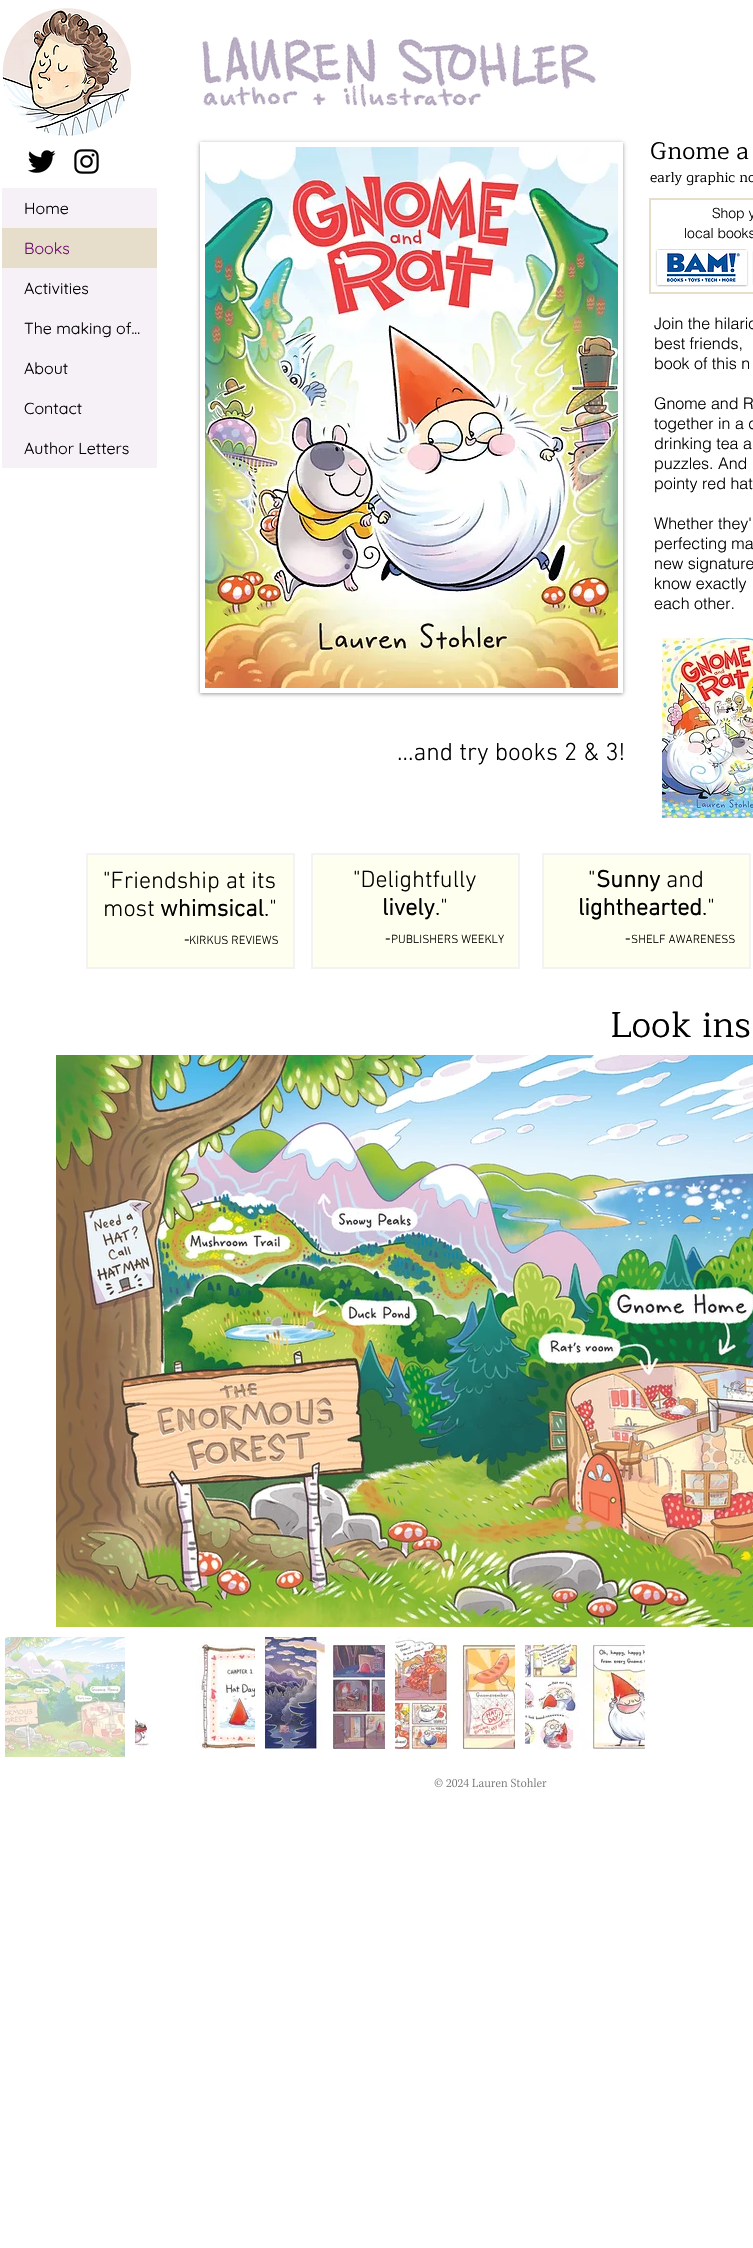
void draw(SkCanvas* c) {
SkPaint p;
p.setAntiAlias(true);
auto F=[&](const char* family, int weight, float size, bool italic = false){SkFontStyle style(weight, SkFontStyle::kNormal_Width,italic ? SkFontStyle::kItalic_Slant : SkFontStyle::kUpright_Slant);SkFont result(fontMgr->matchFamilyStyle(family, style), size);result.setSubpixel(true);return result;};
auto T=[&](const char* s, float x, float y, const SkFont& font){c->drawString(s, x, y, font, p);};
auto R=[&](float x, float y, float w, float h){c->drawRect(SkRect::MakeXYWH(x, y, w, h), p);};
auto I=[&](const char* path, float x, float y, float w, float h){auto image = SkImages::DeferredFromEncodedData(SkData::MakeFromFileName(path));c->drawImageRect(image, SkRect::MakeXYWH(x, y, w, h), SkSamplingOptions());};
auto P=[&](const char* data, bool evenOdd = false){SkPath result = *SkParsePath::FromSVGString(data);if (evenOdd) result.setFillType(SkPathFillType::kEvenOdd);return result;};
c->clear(0xffffffff);
I("1.png",2,8,130,128);
I("2.png",202,36,394,71);
I("3.png",28,150,28,23);
I("4.png",74,149,25,25);
p.setColor(0xfff6f1f7);
R(2,188,155,40);
auto f1 = F("Quicksand",400,16);
p.setColor(0xff000000);
T("Home",24,214,f1);
p.setColor(0xffe6deca);
R(2,228,155,40);
p.setColor(0xff6c116c);
T("Books",24,254,f1);
p.setColor(0xfff6f1f7);
R(2,268,155,200);
p.setColor(0xff000000);
T("Activities",24,294,f1);
T("The making of...",24,334,f1);
T("About",24,374,f1);
T("Contact",24,414,f1);
T("Author Letters",24,454,f1);
c->save();
c->clipPath(P("M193 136h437v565h-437zm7 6h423v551h-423z",true),true);
p.setColor(0x66000000);
p.setMaskFilter(SkMaskFilter::MakeBlur(kNormal_SkBlurStyle, 2));
c->drawRect(SkRect::MakeXYWH(200,143,423,551),p);
p.setMaskFilter(nullptr);
c->restore();
I("5.png",205,147,413,541);
auto f2 = F("Maitree",400,24);
p.setColor(0xff000000);
T("Gnome a",650,159,f2);
auto f3 = F("Maitree",400,14);
T("early graphic no",650,182,f3);
p.setStroke(true);
p.setStrokeWidth(2);
p.setColor(0xffe6deca);
c->drawRect(SkRect::MakeXYWH(650,199,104,94),p);
auto f4 = F("helvetica",300,14);
p.setStroke(false);
p.setColor(0xff000000);
T("Shop y",712,218,f4);
T("local books",684,238,f4);
I("6.png",655,249,94,38);
I("7.png",752,251,1,34);
auto f5 = F("helvetica",300,16);
T("Join the hilario",654,329,f5);
T("best friends,",654,349,f5);
T("book of this n",654,369,f5);
T("Gnome and R",654,409,f5);
T("together in a c",654,429,f5);
T("drinking tea a",654,449,f5);
T("puzzles. And",654,469,f5);
T("pointy red hat",654,489,f5);
T("Whether they'",654,529,f5);
T("perfecting ma",654,549,f5);
T("new signature",654,569,f5);
T("know exactly",654,589,f5);
T("each other.",654,609,f5);
auto f6 = F("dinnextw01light",300,25);
T("...and try books 2 & 3!",397,760,f6);
I("8.png",662,638,91,180);
p.setColor(0xfffeffee);
c->drawRect(SkRect::MakeXYWH(87,854,207,114),p);
p.setStroke(true);
p.setColor(0xfff3f3f3);
c->drawRect(SkRect::MakeXYWH(87,854,207,114),p);
auto f7 = F("dinnextw01light",300,24);
p.setStroke(false);
p.setColor(0xff000000);
T("\"Friendship at its",103,888,f7);
T("most",103,916,f7);
auto f8 = F("dinnextw01light",700,24);
T("whimsical",160,916,f8);
T(".\"",264,916,f7);
auto f9 = F("dinnextw01light",300,15);
T("-",184,944,f9);
auto f10 = F("dinnextw01light",300,12);
T("KIRKUS REVIEWS",189,944,f10);
p.setColor(0xfffeffee);
c->drawRect(SkRect::MakeXYWH(312,854,207,114),p);
p.setStroke(true);
p.setColor(0xfff3f3f3);
c->drawRect(SkRect::MakeXYWH(312,854,207,114),p);
p.setStroke(false);
p.setColor(0xff000000);
T("\"Delightfully",353,887,f7);
T("lively",382,915,f8);
T(".\"",435,915,f7);
T("-",385,943,f9);
T("PUBLISHERS WEEKLY",391,943,f10);
p.setColor(0xfffeffee);
c->drawRect(SkRect::MakeXYWH(543,854,207,114),p);
p.setStroke(true);
p.setColor(0xfff3f3f3);
c->drawRect(SkRect::MakeXYWH(543,854,207,114),p);
p.setStroke(false);
p.setColor(0xff000000);
T("\"",588,887,f7);
T("Sunny",596,887,f8);
T("and",666,887,f7);
T("lighthearted",578,915,f8);
T(".\"",702,915,f7);
T("-",625,943,f9);
T("SHELF AWARENESS",631,943,f10);
auto f11 = F("Maitree",400,36);
T("Look ins",610,1037,f11);
I("9.png",56,1055,697,572);
I("10.png",5,1637,120,120);
I("11.png",135,1642,120,107);
I("12.png",265,1637,120,112);
I("13.png",395,1637,120,113);
I("14.png",525,1641,120,108);
I("15.png",434,1778,113,10);
}
